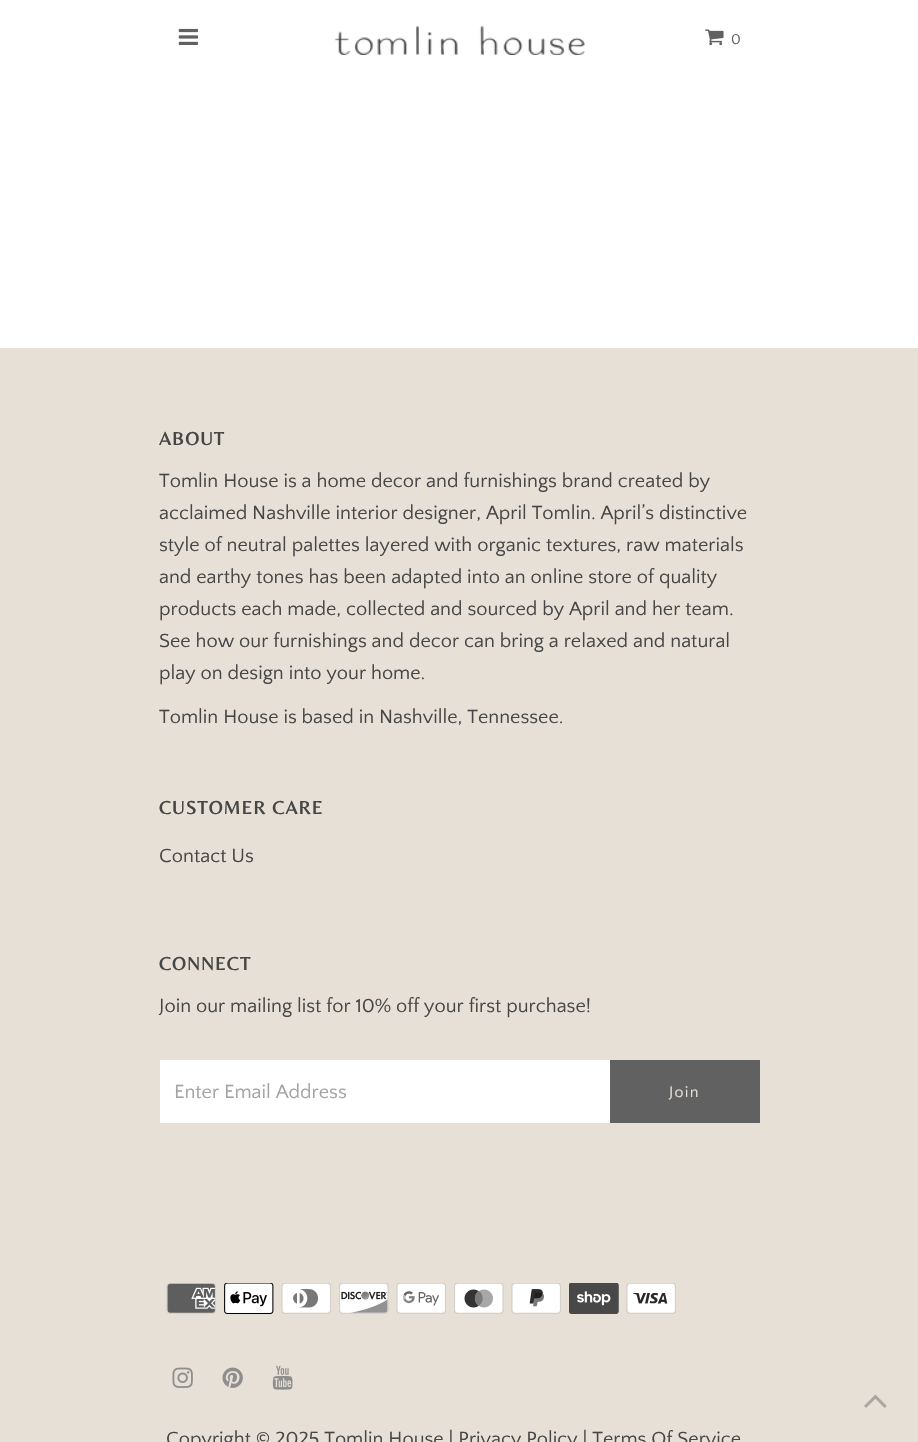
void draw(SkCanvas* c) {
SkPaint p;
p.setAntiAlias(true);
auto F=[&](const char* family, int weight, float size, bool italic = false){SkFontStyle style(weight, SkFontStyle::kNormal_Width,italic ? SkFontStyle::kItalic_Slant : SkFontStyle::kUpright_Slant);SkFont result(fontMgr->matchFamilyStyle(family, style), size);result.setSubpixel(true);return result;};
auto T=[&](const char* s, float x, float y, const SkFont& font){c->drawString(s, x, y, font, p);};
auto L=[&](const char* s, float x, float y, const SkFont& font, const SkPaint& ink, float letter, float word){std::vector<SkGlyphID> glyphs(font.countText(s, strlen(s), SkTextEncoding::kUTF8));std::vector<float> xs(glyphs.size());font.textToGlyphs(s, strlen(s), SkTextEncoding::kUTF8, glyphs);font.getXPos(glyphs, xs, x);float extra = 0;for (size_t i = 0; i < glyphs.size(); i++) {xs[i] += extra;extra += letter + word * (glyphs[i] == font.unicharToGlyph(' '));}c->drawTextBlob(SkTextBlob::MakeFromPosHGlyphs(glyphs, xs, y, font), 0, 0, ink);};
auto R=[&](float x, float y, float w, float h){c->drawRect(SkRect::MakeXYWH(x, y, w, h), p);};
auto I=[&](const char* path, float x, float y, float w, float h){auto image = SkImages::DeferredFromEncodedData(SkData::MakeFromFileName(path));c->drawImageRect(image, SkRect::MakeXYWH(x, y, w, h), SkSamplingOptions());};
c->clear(0xffffffff);
I("1.png",178,28,21,17);
I("2.png",335,26,250,29);
I("3.png",705,29,19,17);
auto f1 = F("Quattrocento Sans",400,15);
p.setColor(0xff616161);
T("0",731,44,f1);
p.setColor(0xffe6e0d7);
R(0,348,918,1094);
auto f2 = F("Belleza",700,18.75);
p.setColor(0xff464646);
L("ABOUT",159,445,f2,p,1.25,0);
auto f3 = F("Quattrocento Sans",400,20);
T("Tomlin House is a home decor and furnishings brand created by",159,487,f3);
T("acclaimed Nashville interior designer, April Tomlin. April’s distinctive",159,519,f3);
T("style of neutral palettes layered with organic textures, raw materials",159,551,f3);
T("and earthy tones has been adapted into an online store of quality",159,583,f3);
T("products each made, collected and sourced by April and her team.",159,615,f3);
T("See how our furnishings and decor can bring a relaxed and natural",159,647,f3);
T("play on design into your home.",159,679,f3);
T("Tomlin House is based in Nashville, Tennessee.",159,723,f3);
L("CUSTOMER CARE",159,814,f2,p,1.25,0);
T("Contact Us",159,862,f3);
L("CONNECT",159,970,f2,p,1.25,0);
T("Join our mailing list for 10% off your first purchase!",159,1012,f3);
p.setColor(0xffffffff);
R(160,1060,450,63);
p.setColor(0xffa2a2a2);
T("Enter Email Address",174,1098,f3);
p.setColor(0xff616161);
R(610,1060,150,63);
auto f4 = F("Quattrocento Sans",400,16);
p.setColor(0xffe6e0d7);
L("Join",669,1097,f4,p,1.25,0);
I("4.png",166,1283,50,31);
I("5.png",224,1283,50,31);
I("6.png",281,1283,50,31);
I("7.png",339,1283,50,31);
I("8.png",396,1283,50,31);
I("9.png",454,1283,50,31);
I("10.png",511,1283,50,31);
I("11.png",569,1283,50,31);
I("12.png",626,1283,50,31);
I("13.png",172,1367,21,21);
I("14.png",222,1367,21,21);
I("15.png",272,1365,21,25);
p.setColor(0xff464646);
T("Copyright © 2025 Tomlin House | Privacy Policy | Terms Of Service",166,1445,f3);
I("16.png",864,1394,23,14);
}
